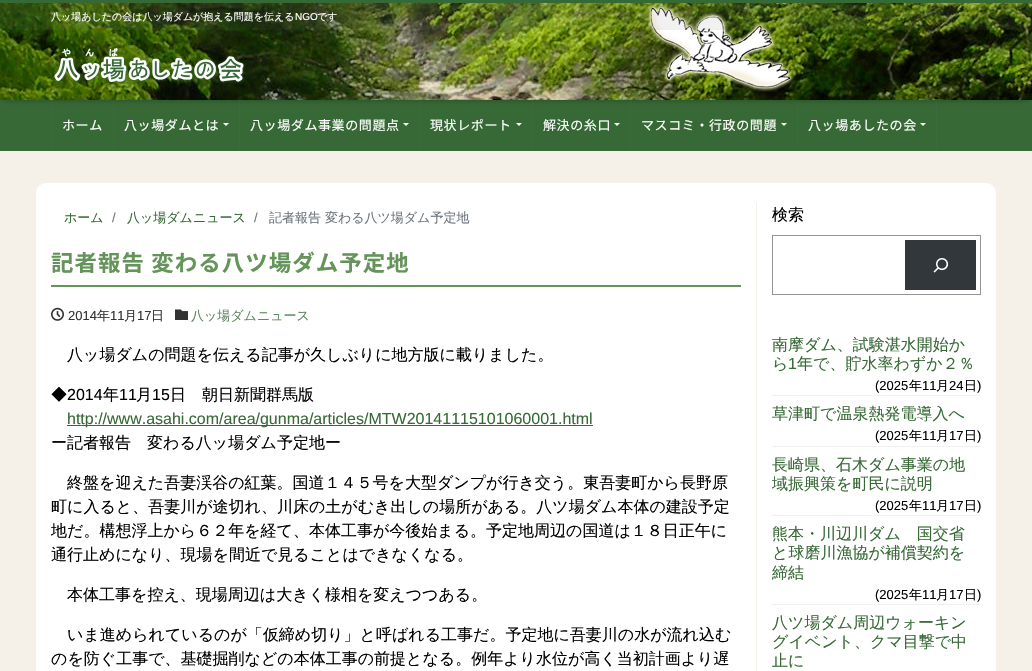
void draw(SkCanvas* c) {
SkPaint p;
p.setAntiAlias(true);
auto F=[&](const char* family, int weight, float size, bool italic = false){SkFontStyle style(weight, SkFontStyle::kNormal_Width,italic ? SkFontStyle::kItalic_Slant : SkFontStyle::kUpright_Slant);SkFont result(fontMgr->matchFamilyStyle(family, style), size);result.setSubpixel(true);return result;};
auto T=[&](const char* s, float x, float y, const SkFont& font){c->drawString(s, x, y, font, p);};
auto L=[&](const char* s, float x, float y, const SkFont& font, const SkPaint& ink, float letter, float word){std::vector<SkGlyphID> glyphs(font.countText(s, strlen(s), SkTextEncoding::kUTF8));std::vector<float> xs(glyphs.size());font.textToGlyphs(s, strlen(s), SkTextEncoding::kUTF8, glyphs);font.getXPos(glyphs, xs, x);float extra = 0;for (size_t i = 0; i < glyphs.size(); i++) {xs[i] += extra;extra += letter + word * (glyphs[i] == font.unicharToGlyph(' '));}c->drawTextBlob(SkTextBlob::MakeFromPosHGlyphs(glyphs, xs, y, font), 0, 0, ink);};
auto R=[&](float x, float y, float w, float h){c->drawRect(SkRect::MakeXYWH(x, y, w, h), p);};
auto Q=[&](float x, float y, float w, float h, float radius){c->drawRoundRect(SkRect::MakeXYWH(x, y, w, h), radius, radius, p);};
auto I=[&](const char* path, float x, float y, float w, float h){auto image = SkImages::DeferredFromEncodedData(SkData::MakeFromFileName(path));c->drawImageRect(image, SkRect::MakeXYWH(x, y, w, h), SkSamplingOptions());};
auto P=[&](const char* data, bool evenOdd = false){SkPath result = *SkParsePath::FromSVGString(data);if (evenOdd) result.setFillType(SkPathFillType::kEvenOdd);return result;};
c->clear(0xfff5f1e8);
p.setColor(0xff376936);
R(0,100,1032,50);
p.setColor(0xff3d6a3d);
c->drawPath(P("M51 150v-50h1v49z"),p);
R(113,100,1,49);
R(239,100,1,49);
R(419,100,1,49);
R(532,100,1,49);
R(630,100,1,49);
R(797,100,1,49);
R(936,100,1,49);
p.setColor(0x4d000000);
p.setMaskFilter(SkMaskFilter::MakeBlur(kNormal_SkBlurStyle, 3));
c->drawRect(SkRect::MakeXYWH(3,6,1026,94),p);
p.setMaskFilter(nullptr);
I("1.png",0,3,1032,97);
p.setColor(0xff376936);
R(0,0,1032,3);
p.setColor(0x1a777777);
R(0,3,1032,27);
auto f1 = F("WenQuanYi Zen Hei",500,10);
p.setColor(0xffffffff);
T("八ッ場あしたの会は八ッ場ダムが抱える問題を伝える",51,20,f1);
auto f2 = F("Liberation Sans",400,10);
T("NGO",295,20,f2);
T("です",317,20,f1);
I("2.png",53,48,193,36);
p.setColor(0xff3d6a3d);
R(0,150,1032,1);
auto f3 = F("Noto Sans JP",400,13);
p.setColor(0xffffffff);
L("ホーム",62,130,f3,p,.6,0);
L("八ッ場ダムとは",124,130,f3,p,.6,0);
c->drawPath(P("M223 123h6l-3 3z"),p);
L("八ッ場ダム事業の問題点",250,130,f3,p,.6,0);
c->drawPath(P("M403 123h6l-3 3z"),p);
L("現状レポート",430,130,f3,p,.6,0);
c->drawPath(P("M516 123h6l-3 3z"),p);
L("解決の糸口",543,130,f3,p,.6,0);
c->drawPath(P("M614 123h6l-3 3z"),p);
L("マスコミ・行政の問題",641,130,f3,p,.6,0);
c->drawPath(P("M781 123h6l-3 3z"),p);
L("八ッ場あしたの会",808,130,f3,p,.6,0);
c->drawPath(P("M920 123h6l-3 3z"),p);
Q(36,183,960,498,10);
auto f4 = F("WenQuanYi Zen Hei",500,13);
p.setColor(0xff376936);
T("ホーム",64,222,f4);
auto f5 = F("Liberation Sans",400,13);
p.setColor(0xff6c757d);
T("/",112,222,f5);
p.setColor(0xff376936);
T("八ッ場ダムニュース",127,222,f4);
p.setColor(0xff6c757d);
T("/",254,222,f5);
T("記者報告 変わる八ツ場ダム予定地",269,222,f4);
p.setColor(0xff649459);
R(51,285,690,2);
auto f6 = F("Noto Sans JP",700,22.4);
L("記者報告 変わる八ツ場ダム予定地",51,271,f6,p,1.1,0);
I("3.png",51,307,13,14);
p.setColor(0xff333333);
T("2014",68,320,f5);
T("年",97,320,f4);
T("11",110,320,f5);
T("月",124,320,f4);
T("17",137,320,f5);
T("日",151,320,f4);
I("4.png",175,309,13,11);
p.setColor(0xff5f875e);
T("八ッ場ダムニュース",191,320,f4);
auto f7 = F("WenQuanYi Zen Hei",500,16);
p.setColor(0xff000000);
T("八ッ場ダムの問題を伝える記事が久しぶりに地方版に載りました。",67,360,f7);
T("◆",51,400,f7);
auto f8 = F("Liberation Sans",400,16);
T("2014",67,400,f8);
T("年",103,400,f7);
T("11",119,400,f8);
T("月",136,400,f7);
T("15",152,400,f8);
T("日　朝日新聞群馬版",170,400,f7);
p.setColor(0xff376936);
R(67,425,526,1);
T("http://www.asahi.com/area/gunma/articles/MTW20141115101060001.html",67,424,f8);
p.setColor(0xff000000);
T("ー記者報告　変わる八ッ場ダム予定地ー",51,448,f7);
T("終盤を迎えた吾妻渓谷の紅葉。国道１４５号を大型ダンプが行き交う。東吾妻町から長野原",67,488,f7);
T("町に入ると、吾妻川が途切れ、川床の土がむき出しの場所がある。八ツ場ダム本体の建設予定",51,512,f7);
T("地だ。構想浮上から６２年を経て、本体工事が今後始まる。予定地周辺の国道は１８日正午に",51,536,f7);
T("通行止めになり、現場を間近で見ることはできなくなる。",51,560,f7);
T("本体工事を控え、現場周辺は大きく様相を変えつつある。",67,600,f7);
T("いま進められているのが「仮締め切り」と呼ばれる工事だ。予定地に吾妻川の水が流れ込む",67,640,f7);
T("のを防ぐ工事で、基礎掘削などの本体工事の前提となる。例年より水位が高く当初計画より遅",51,664,f7);
p.setColor(0xfff5f1e8);
R(756,203,1,468);
p.setColor(0xff000000);
T("検索",772,220,f7);
p.setStroke(true);
p.setStrokeWidth(1);
p.setColor(0xff949494);
c->drawRect(SkRect::MakeXYWH(772.5,235.5,208,59),p);
p.setStroke(false);
p.setColor(0xff32373c);
R(905,240,71,50);
I("5.png",933,258,16,15);
p.setColor(0xfff1f1f1);
R(772,395,209,1);
p.setColor(0xff376936);
T("南摩ダム、試験湛水開始か",772,350,f7);
T("ら",772,369,f7);
T("1",788,369,f8);
T("年で、貯水率わずか２％",797,369,f7);
p.setColor(0xff000000);
T("(2025",875,390,f5);
T("年",909,390,f4);
T("11",922,390,f5);
T("月",936,390,f4);
T("24",949,390,f5);
T("日",964,390,f4);
T(")",977,390,f5);
p.setColor(0xfff1f1f1);
R(772,446,209,1);
p.setColor(0xff376936);
T("草津町で温泉熱発電導入へ",772,419,f7);
p.setColor(0xff000000);
T("(2025",875,440,f5);
T("年",909,440,f4);
T("11",922,440,f5);
T("月",936,440,f4);
T("17",949,440,f5);
T("日",964,440,f4);
T(")",977,440,f5);
p.setColor(0xfff1f1f1);
R(772,515,209,1);
p.setColor(0xff376936);
T("長崎県、石木ダム事業の地",772,470,f7);
T("域振興策を町民に説明",772,489,f7);
p.setColor(0xff000000);
T("(2025",875,510,f5);
T("年",909,510,f4);
T("11",922,510,f5);
T("月",936,510,f4);
T("17",949,510,f5);
T("日",964,510,f4);
T(")",977,510,f5);
p.setColor(0xfff1f1f1);
R(772,604,209,1);
p.setColor(0xff376936);
T("熊本・川辺川ダム　国交省",772,539,f7);
T("と球磨川漁協が補償契約を",772,558,f7);
T("締結",772,578,f7);
p.setColor(0xff000000);
T("(2025",875,599,f5);
T("年",909,599,f4);
T("11",922,599,f5);
T("月",936,599,f4);
T("17",949,599,f5);
T("日",964,599,f4);
T(")",977,599,f5);
p.setColor(0xff376936);
T("八ツ場ダム周辺ウォーキン",772,628,f7);
T("グイベント、クマ目撃で中",772,647,f7);
T("止に",772,666,f7);
}
